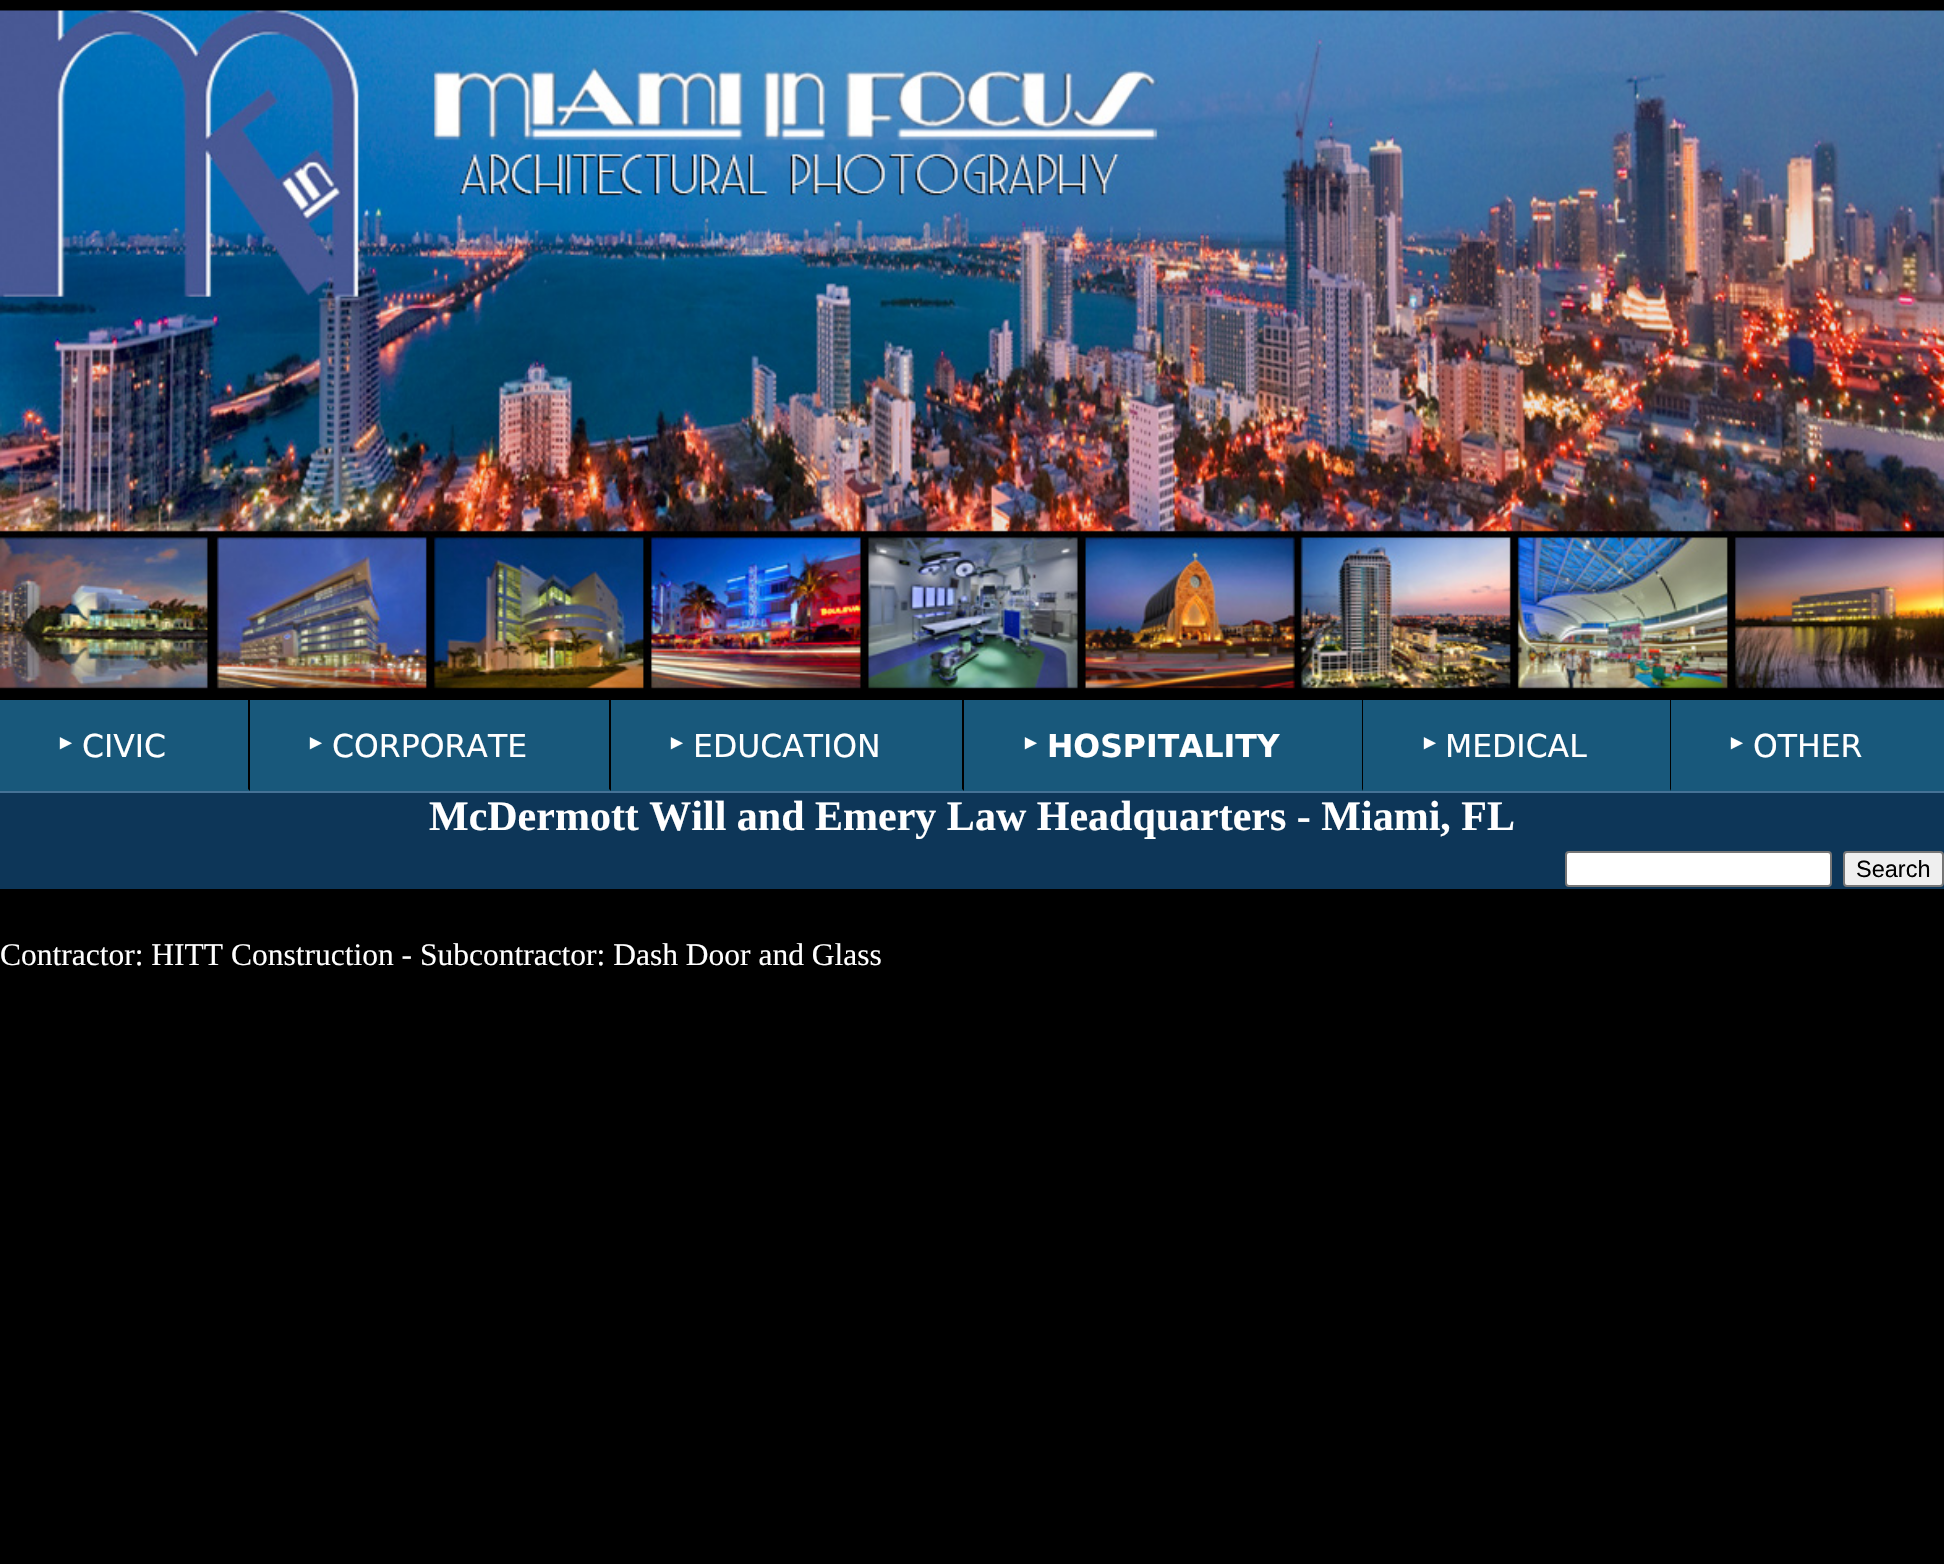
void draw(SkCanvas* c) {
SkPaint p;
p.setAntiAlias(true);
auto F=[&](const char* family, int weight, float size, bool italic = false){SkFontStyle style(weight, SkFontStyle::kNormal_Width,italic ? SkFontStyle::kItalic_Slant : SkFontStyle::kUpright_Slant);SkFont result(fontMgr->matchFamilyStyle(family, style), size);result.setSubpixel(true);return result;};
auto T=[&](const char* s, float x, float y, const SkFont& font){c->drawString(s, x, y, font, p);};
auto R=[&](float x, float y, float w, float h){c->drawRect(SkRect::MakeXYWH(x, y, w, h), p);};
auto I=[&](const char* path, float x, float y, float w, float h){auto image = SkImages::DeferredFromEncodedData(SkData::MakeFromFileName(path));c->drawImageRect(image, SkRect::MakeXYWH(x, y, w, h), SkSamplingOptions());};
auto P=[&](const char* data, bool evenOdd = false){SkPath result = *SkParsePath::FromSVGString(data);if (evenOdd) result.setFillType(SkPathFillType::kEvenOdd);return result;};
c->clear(0xff000000);
I("1.png",0,10,1944,680);
p.setColor(0xff457296);
R(0,791,1944,2);
p.setColor(0xff18587b);
R(0,700,1944,91);
p.setColor(0xff000000);
c->drawPath(P("M250 700v91l-2-2v-89z"),p);
auto f1 = F("Liberation Sans",700,20);
p.setColor(0xffffffff);
T("►",56,749,f1);
auto f2 = F("DejaVu Sans",400,31.5);
T("CIVIC",82,757,f2);
p.setColor(0xff000000);
c->drawPath(P("M611 700v91l-2-2v-89z"),p);
p.setColor(0xffffffff);
T("►",306,749,f1);
T("CORPORATE",332,757,f2);
p.setColor(0xff000000);
c->drawPath(P("M964 700v91l-2-2v-89z"),p);
p.setColor(0xffffffff);
T("►",667,749,f1);
T("EDUCATION",693,757,f2);
p.setColor(0xff000000);
c->drawPath(P("M1363 700v91l-1-2v-89z"),p);
p.setColor(0xffffffff);
T("►",1021,749,f1);
auto f3 = F("DejaVu Sans",700,31.5);
T("HOSPITALITY",1047,757,f3);
p.setColor(0xff000000);
c->drawPath(P("M1671 700v91l-1-2v-89z"),p);
p.setColor(0xffffffff);
T("►",1420,749,f1);
T("MEDICAL",1445,757,f2);
T("►",1727,749,f1);
T("OTHER",1753,757,f2);
p.setColor(0xff0d3658);
R(0,793,1944,96);
auto f4 = F("Liberation Serif",700,42);
p.setColor(0xffffffff);
T("McDermott Will and Emery Law Headquarters - Miami, FL",429,830,f4);
c->drawRoundRect(SkRect::MakeXYWH(1566,852,265,34),3,3,p);
p.setStroke(true);
p.setStrokeWidth(2);
p.setColor(0xff767676);
c->drawRoundRect(SkRect::MakeXYWH(1566,852,265,34),3,3,p);
p.setStroke(false);
p.setColor(0xffefefef);
c->drawRoundRect(SkRect::MakeXYWH(1844,852,99,34),3,3,p);
p.setStroke(true);
p.setColor(0xff767676);
c->drawRoundRect(SkRect::MakeXYWH(1844,852,99,34),3,3,p);
auto f5 = F("Liberation Sans",400,23.5);
p.setStroke(false);
p.setColor(0xff000000);
T("Search",1856,877,f5);
auto f6 = F("Liberation Serif",400,31.5);
p.setColor(0xffffffff);
T("Contractor: HITT Construction - Subcontractor: Dash Door and Glass",0,965,f6);
}
